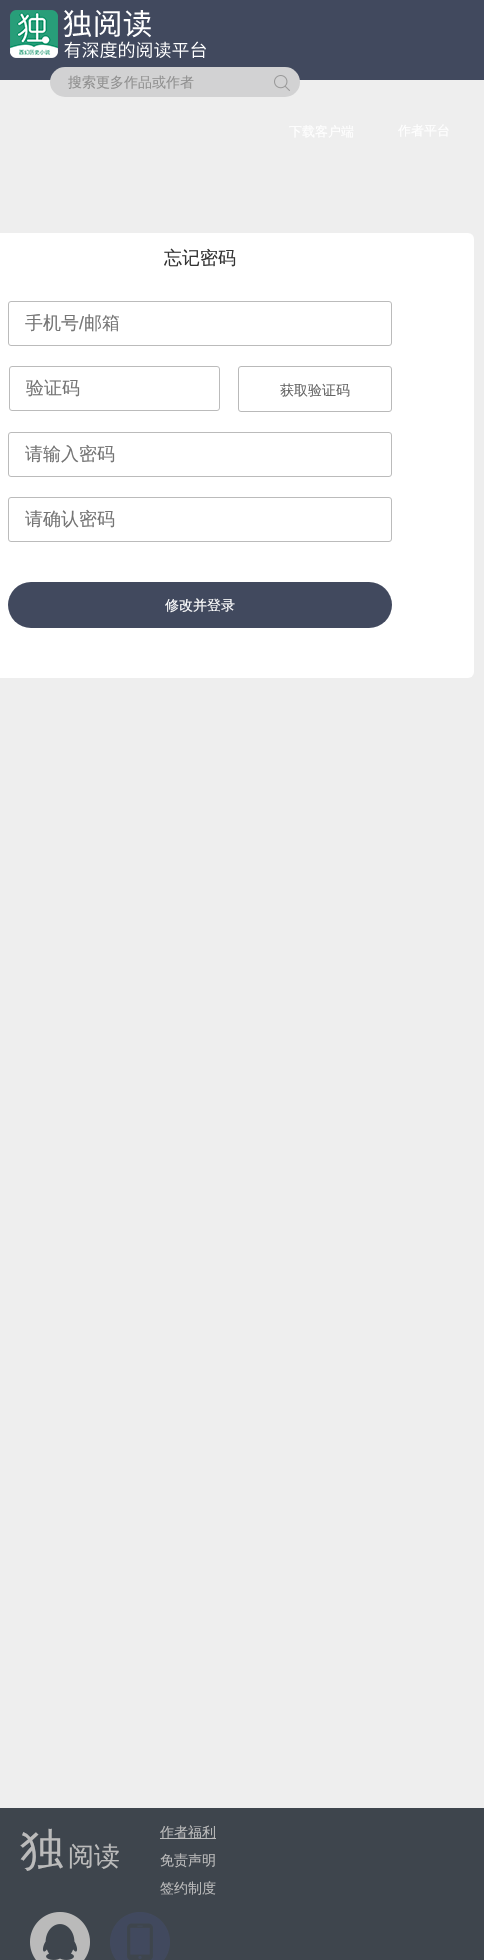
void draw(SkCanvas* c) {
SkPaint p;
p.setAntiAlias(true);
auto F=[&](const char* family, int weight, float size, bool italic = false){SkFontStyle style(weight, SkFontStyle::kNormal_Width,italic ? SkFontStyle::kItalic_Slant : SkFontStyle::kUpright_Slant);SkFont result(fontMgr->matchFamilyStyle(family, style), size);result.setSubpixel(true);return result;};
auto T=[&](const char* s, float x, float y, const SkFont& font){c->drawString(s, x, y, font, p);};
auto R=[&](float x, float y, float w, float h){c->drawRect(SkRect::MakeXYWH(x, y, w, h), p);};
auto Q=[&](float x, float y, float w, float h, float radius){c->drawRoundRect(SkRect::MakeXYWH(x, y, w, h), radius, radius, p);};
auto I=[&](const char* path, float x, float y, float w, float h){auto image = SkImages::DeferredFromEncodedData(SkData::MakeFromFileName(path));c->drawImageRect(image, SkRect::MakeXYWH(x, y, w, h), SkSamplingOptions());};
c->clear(0xff41495e);
I("1.png",10,10,196,48);
p.setColor(0xffeeeeee);
R(0,80,484,1728);
p.setColor(0xffd2d2d3);
Q(50,67,250,30,15);
auto f1 = F("WenQuanYi Zen Hei",500,14);
p.setColor(0xff909090);
T("搜索更多作品或作者",68,87,f1);
I("2.png",274,75,16,16);
auto f2 = F("WenQuanYi Zen Hei",500,13);
p.setColor(0xffffffff);
T("下载客户端",289,136,f2);
T("作者平台",398,135,f2);
Q(-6,233,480,445,6);
auto f3 = F("WenQuanYi Zen Hei",500,18);
p.setColor(0xff333333);
T("忘记密码",164,264,f3);
p.setStroke(true);
p.setStrokeWidth(1);
p.setColor(0xffbbbbbb);
c->drawRoundRect(SkRect::MakeXYWH(8.5,301.5,383,44),2.5,2.5,p);
p.setStroke(false);
p.setColor(0xff757575);
T("手机号",25,329,f3);
auto f4 = F("Liberation Sans",400,18);
T("/",79,329,f4);
T("邮箱",84,329,f3);
p.setStroke(true);
p.setColor(0xffbbbbbb);
c->drawRoundRect(SkRect::MakeXYWH(9.5,366.5,210,44),2.5,2.5,p);
p.setStroke(false);
p.setColor(0xff757575);
T("验证码",26,394,f3);
p.setStroke(true);
p.setColor(0xffb9b9b9);
c->drawRoundRect(SkRect::MakeXYWH(238.5,366.5,153,45),2.5,2.5,p);
p.setStroke(false);
p.setColor(0xff666666);
T("获取验证码",280,395,f1);
p.setStroke(true);
p.setColor(0xffbbbbbb);
c->drawRoundRect(SkRect::MakeXYWH(8.5,432.5,383,44),2.5,2.5,p);
p.setStroke(false);
p.setColor(0xff757575);
T("请输入密码",25,460,f3);
p.setStroke(true);
p.setColor(0xffbbbbbb);
c->drawRoundRect(SkRect::MakeXYWH(8.5,497.5,383,44),2.5,2.5,p);
p.setStroke(false);
p.setColor(0xff757575);
T("请确认密码",25,525,f3);
p.setColor(0xff41495e);
Q(8,582,384,46,23);
p.setColor(0xffffffff);
T("修改并登录",165,610,f1);
p.setColor(0xff3e454d);
R(0,1808,484,152);
auto f5 = F("WenQuanYi Zen Hei",500,44);
p.setColor(0xffbbbbbb);
T("独",20,1865,f5);
auto f6 = F("WenQuanYi Zen Hei",500,26);
T("阅读",68,1865,f6);
R(160,1838,56,1);
T("作者福利",160,1837,f1);
T("免责声明",160,1865,f1);
T("签约制度",160,1893,f1);
I("3.png",30,1912,60,48);
I("4.png",110,1912,60,48);
}
